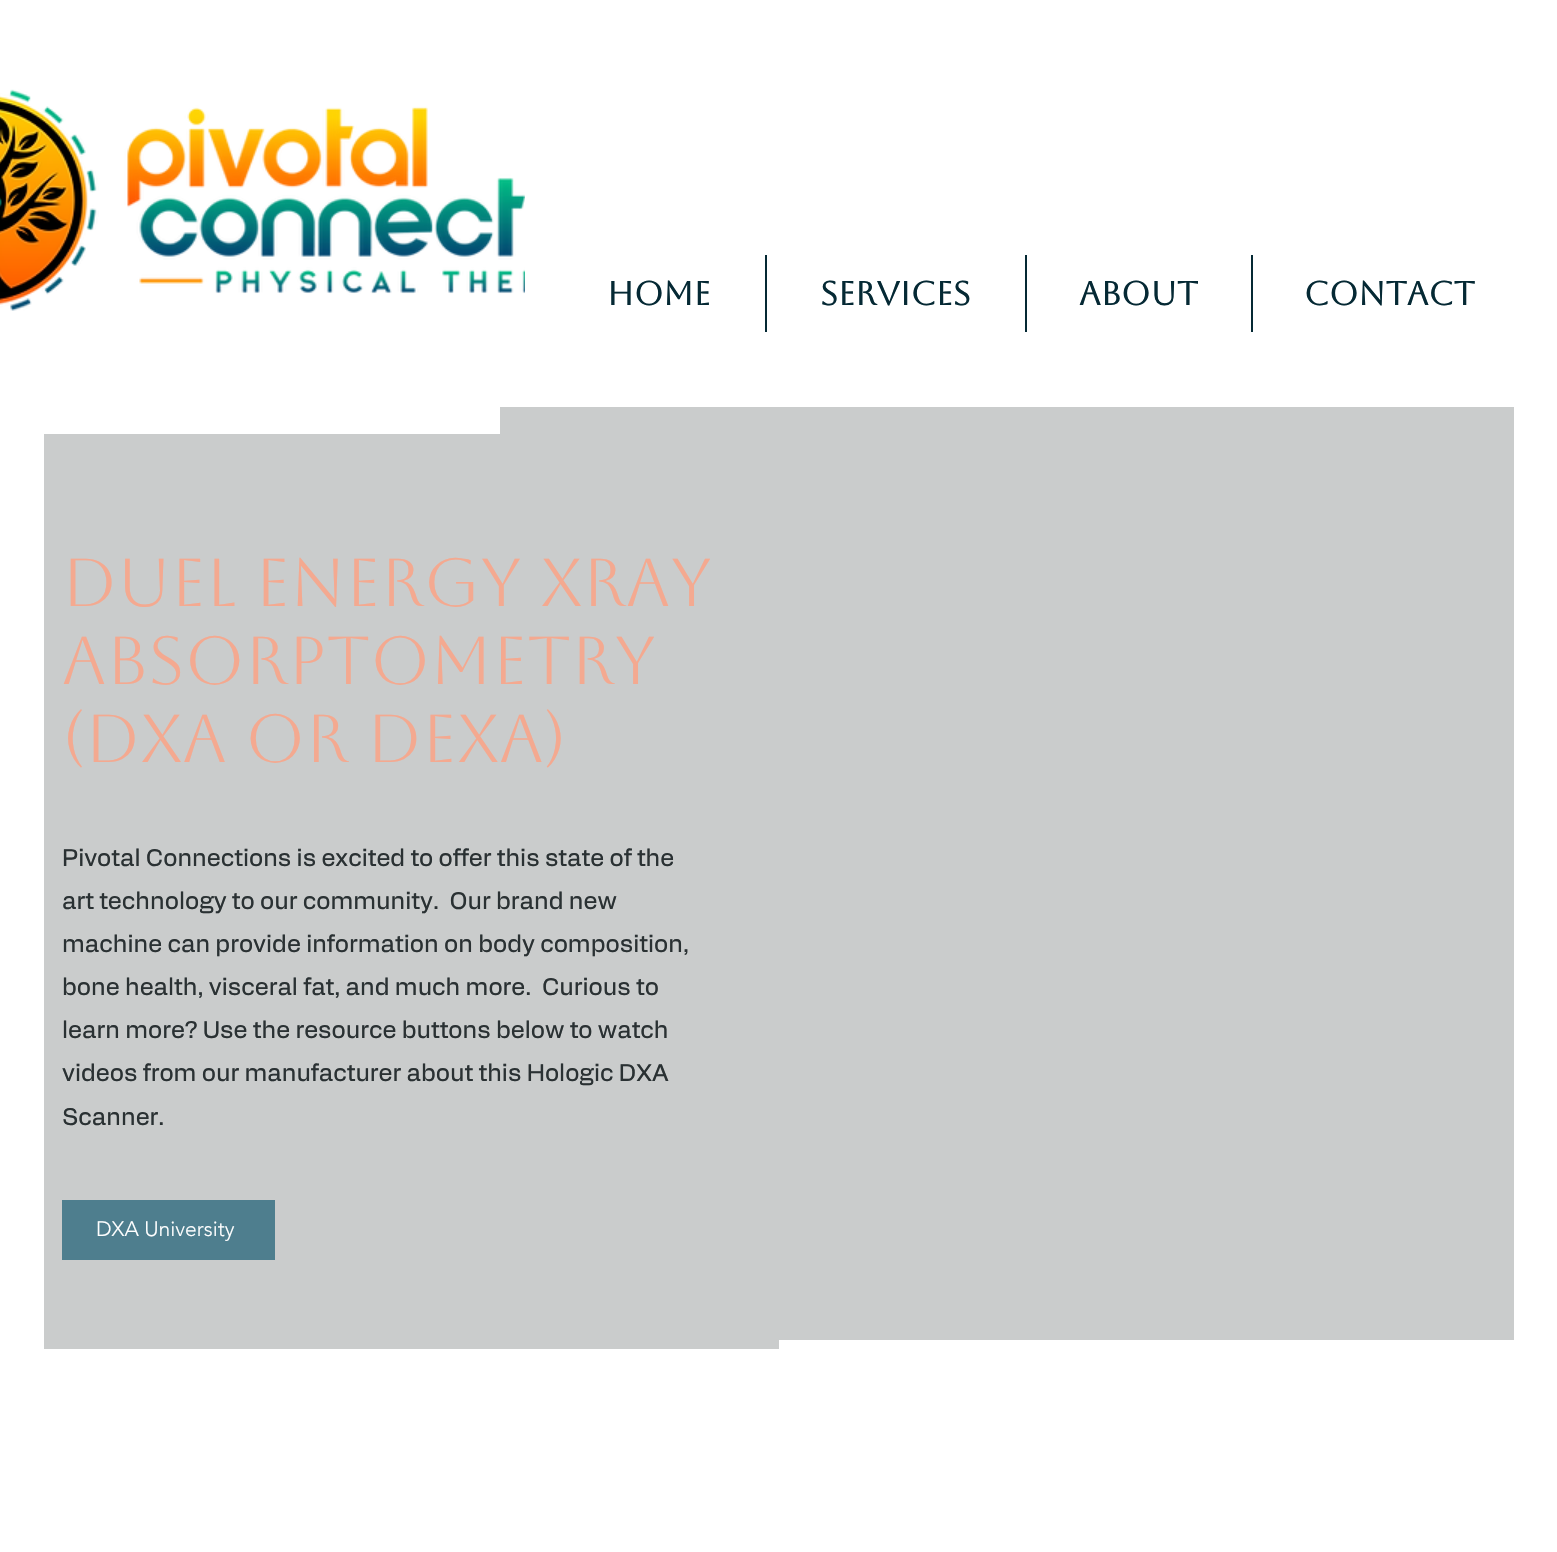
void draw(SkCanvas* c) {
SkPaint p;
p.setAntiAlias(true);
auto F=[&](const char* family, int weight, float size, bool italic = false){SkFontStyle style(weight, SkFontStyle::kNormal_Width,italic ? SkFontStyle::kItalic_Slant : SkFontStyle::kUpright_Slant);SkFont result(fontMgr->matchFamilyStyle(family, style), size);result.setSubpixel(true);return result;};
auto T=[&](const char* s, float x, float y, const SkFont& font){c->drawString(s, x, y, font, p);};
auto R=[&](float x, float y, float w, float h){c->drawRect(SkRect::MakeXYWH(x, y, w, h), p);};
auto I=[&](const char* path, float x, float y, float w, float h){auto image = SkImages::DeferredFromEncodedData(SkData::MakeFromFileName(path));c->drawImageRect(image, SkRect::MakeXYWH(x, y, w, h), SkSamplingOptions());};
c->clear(0xffffffff);
I("1.png",0,89,525,222);
auto f1 = F("Aboreto",700,33);
p.setColor(0xff052934);
T("HOME",607,305,f1);
R(765,255,2,77);
T("SERVICES",820,305,f1);
R(1025,255,2,77);
T("ABOUT",1079,305,f1);
R(1251,255,2,77);
T("CONTACT",1304,305,f1);
p.setColor(0xffcacccc);
R(500,407,1014,933);
R(44,434,735,915);
auto f2 = F("Aboreto",400,67.5);
p.setColor(0xfff4a990);
T("Duel Energy Xray",62,606,f2);
T("Absorptometry",62,684,f2);
T("(DXA or DEXA)",62,762,f2);
auto f3 = F("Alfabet",400,24);
p.setColor(0xff2a3133);
T("Pivotal Connections is excited to offer this state of the",62,866,f3);
T("art technology to our community.  Our brand new",62,909,f3);
T("machine can provide information on body composition,",62,952,f3);
T("bone health, visceral fat, and much more.  Curious to",62,995,f3);
T("learn more? Use the resource buttons below to watch",62,1038,f3);
T("videos from our manufacturer about this Hologic DXA",62,1081,f3);
T("Scanner.",62,1125,f3);
p.setColor(0xff4e7e8e);
R(62,1200,213,60);
auto f4 = F("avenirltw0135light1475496",300,21);
p.setColor(0xffffffff);
T("DXA University",96,1236,f4);
}
